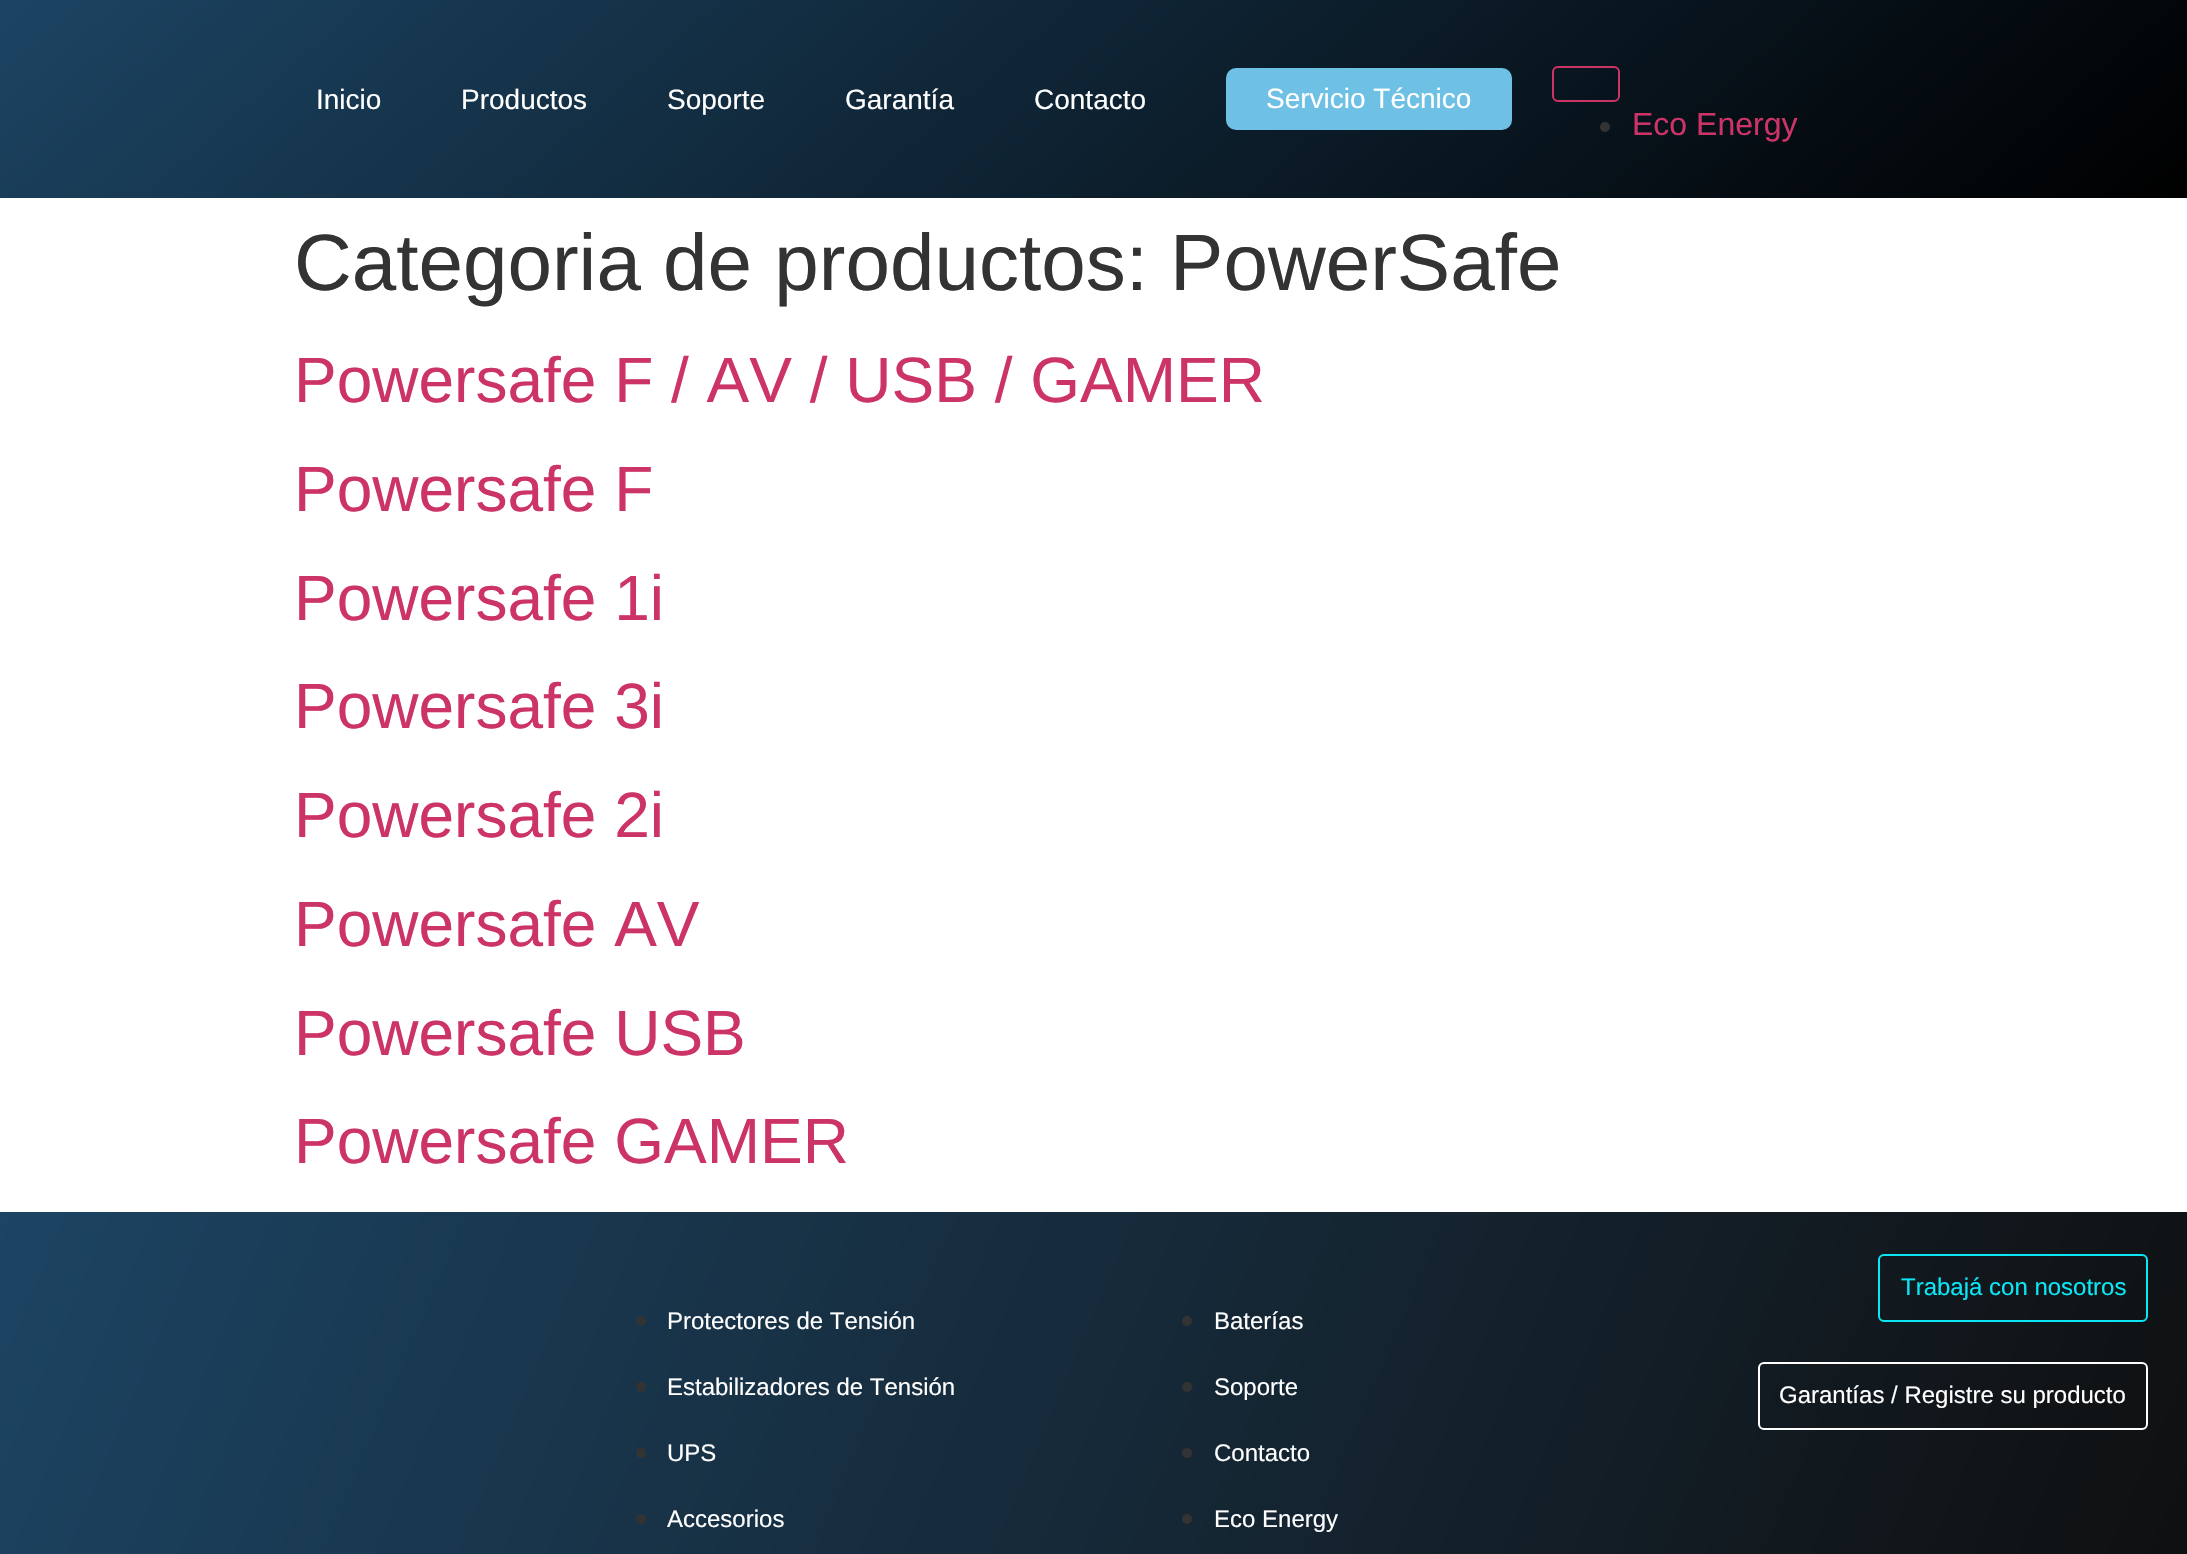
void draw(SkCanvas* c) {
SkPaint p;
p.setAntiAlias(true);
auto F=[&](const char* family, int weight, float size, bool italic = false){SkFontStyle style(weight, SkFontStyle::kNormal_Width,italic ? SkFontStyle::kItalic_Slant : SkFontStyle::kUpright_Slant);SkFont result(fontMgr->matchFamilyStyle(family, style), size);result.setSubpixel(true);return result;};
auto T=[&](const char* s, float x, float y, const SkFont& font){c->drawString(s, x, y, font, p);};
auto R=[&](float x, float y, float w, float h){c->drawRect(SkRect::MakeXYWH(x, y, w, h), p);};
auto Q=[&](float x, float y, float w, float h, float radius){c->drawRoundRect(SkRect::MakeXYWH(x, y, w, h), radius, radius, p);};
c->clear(0xffffffff);
{
const SkColor colors[] = {0xff1c4463,0xff000000};
const float stops[] = {0,1};
const SkPoint ends[] = {{574,-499}, {1614,697}};
p.setShader(SkGradientShader::MakeLinear(ends, colors, stops, 2, SkTileMode::kClamp));
p.setAlpha(255);
}
R(0,0,2187,198);
auto f1 = F("Liberation Sans",400,28);
p.setShader(nullptr);
p.setColor(0xffffffff);
T("Inicio",316,109,f1);
T("Productos",461,109,f1);
T("Soporte",667,109,f1);
T("Garantía",845,109,f1);
T("Contacto",1034,109,f1);
p.setColor(0xff6ec1e4);
Q(1226,68,286,62,10);
p.setColor(0xffffffff);
T("Servicio Técnico",1266,108,f1);
p.setStroke(true);
p.setStrokeWidth(2);
p.setColor(0xffcc3366);
c->drawRoundRect(SkRect::MakeXYWH(1553,67,66,34),5,5,p);
p.setStroke(false);
p.setColor(0xff333333);
c->drawCircle(1605,127,5,p);
auto f2 = F("Liberation Sans",400,32);
p.setColor(0xffcc3366);
T("Eco Energy",1632,135,f2);
auto f3 = F("Liberation Sans",400,80);
p.setColor(0xff333333);
T("Categoria de productos: PowerSafe",294,290,f3);
auto f4 = F("Liberation Sans",400,64);
p.setColor(0xffcc3366);
T("Powersafe F / AV / USB / GAMER",294,402,f4);
T("Powersafe F",294,511,f4);
T("Powersafe 1i",294,620,f4);
T("Powersafe 3i",294,728,f4);
T("Powersafe 2i",294,837,f4);
T("Powersafe AV",294,946,f4);
T("Powersafe USB",294,1055,f4);
T("Powersafe GAMER",294,1163,f4);
{
const SkColor colors[] = {0xff1c4463,0xff0f0f0f};
const float stops[] = {0,1};
const SkPoint ends[] = {{93,993}, {2095,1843}};
p.setShader(SkGradientShader::MakeLinear(ends, colors, stops, 2, SkTileMode::kClamp));
p.setAlpha(255);
}
R(0,1212,2187,342);
p.setShader(nullptr);
p.setColor(0xff333333);
c->drawCircle(641,1321,5,p);
auto f5 = F("Liberation Sans",400,24);
p.setColor(0xffffffff);
T("Protectores de Tensión",667,1329,f5);
p.setColor(0xff333333);
c->drawCircle(641,1387,5,p);
p.setColor(0xffffffff);
T("Estabilizadores de Tensión",667,1395,f5);
p.setColor(0xff333333);
c->drawCircle(641,1453,5,p);
p.setColor(0xffffffff);
T("UPS",667,1461,f5);
p.setColor(0xff333333);
c->drawCircle(641,1519,5,p);
p.setColor(0xffffffff);
T("Accesorios",667,1527,f5);
p.setColor(0xff333333);
c->drawCircle(1187,1321,5,p);
p.setColor(0xffffffff);
T("Baterías",1214,1329,f5);
p.setColor(0xff333333);
c->drawCircle(1187,1387,5,p);
p.setColor(0xffffffff);
T("Soporte",1214,1395,f5);
p.setColor(0xff333333);
c->drawCircle(1187,1453,5,p);
p.setColor(0xffffffff);
T("Contacto",1214,1461,f5);
p.setColor(0xff333333);
c->drawCircle(1187,1519,5,p);
p.setColor(0xffffffff);
T("Eco Energy",1214,1527,f5);
p.setStroke(true);
p.setColor(0xff0be6f5);
c->drawRoundRect(SkRect::MakeXYWH(1879,1255,268,66),5,5,p);
p.setStroke(false);
T("Trabajá con nosotros",1901,1295,f5);
p.setStroke(true);
p.setColor(0xffffffff);
c->drawRoundRect(SkRect::MakeXYWH(1759,1363,388,66),5,5,p);
p.setStroke(false);
T("Garantías / Registre su producto",1779,1403,f5);
}
